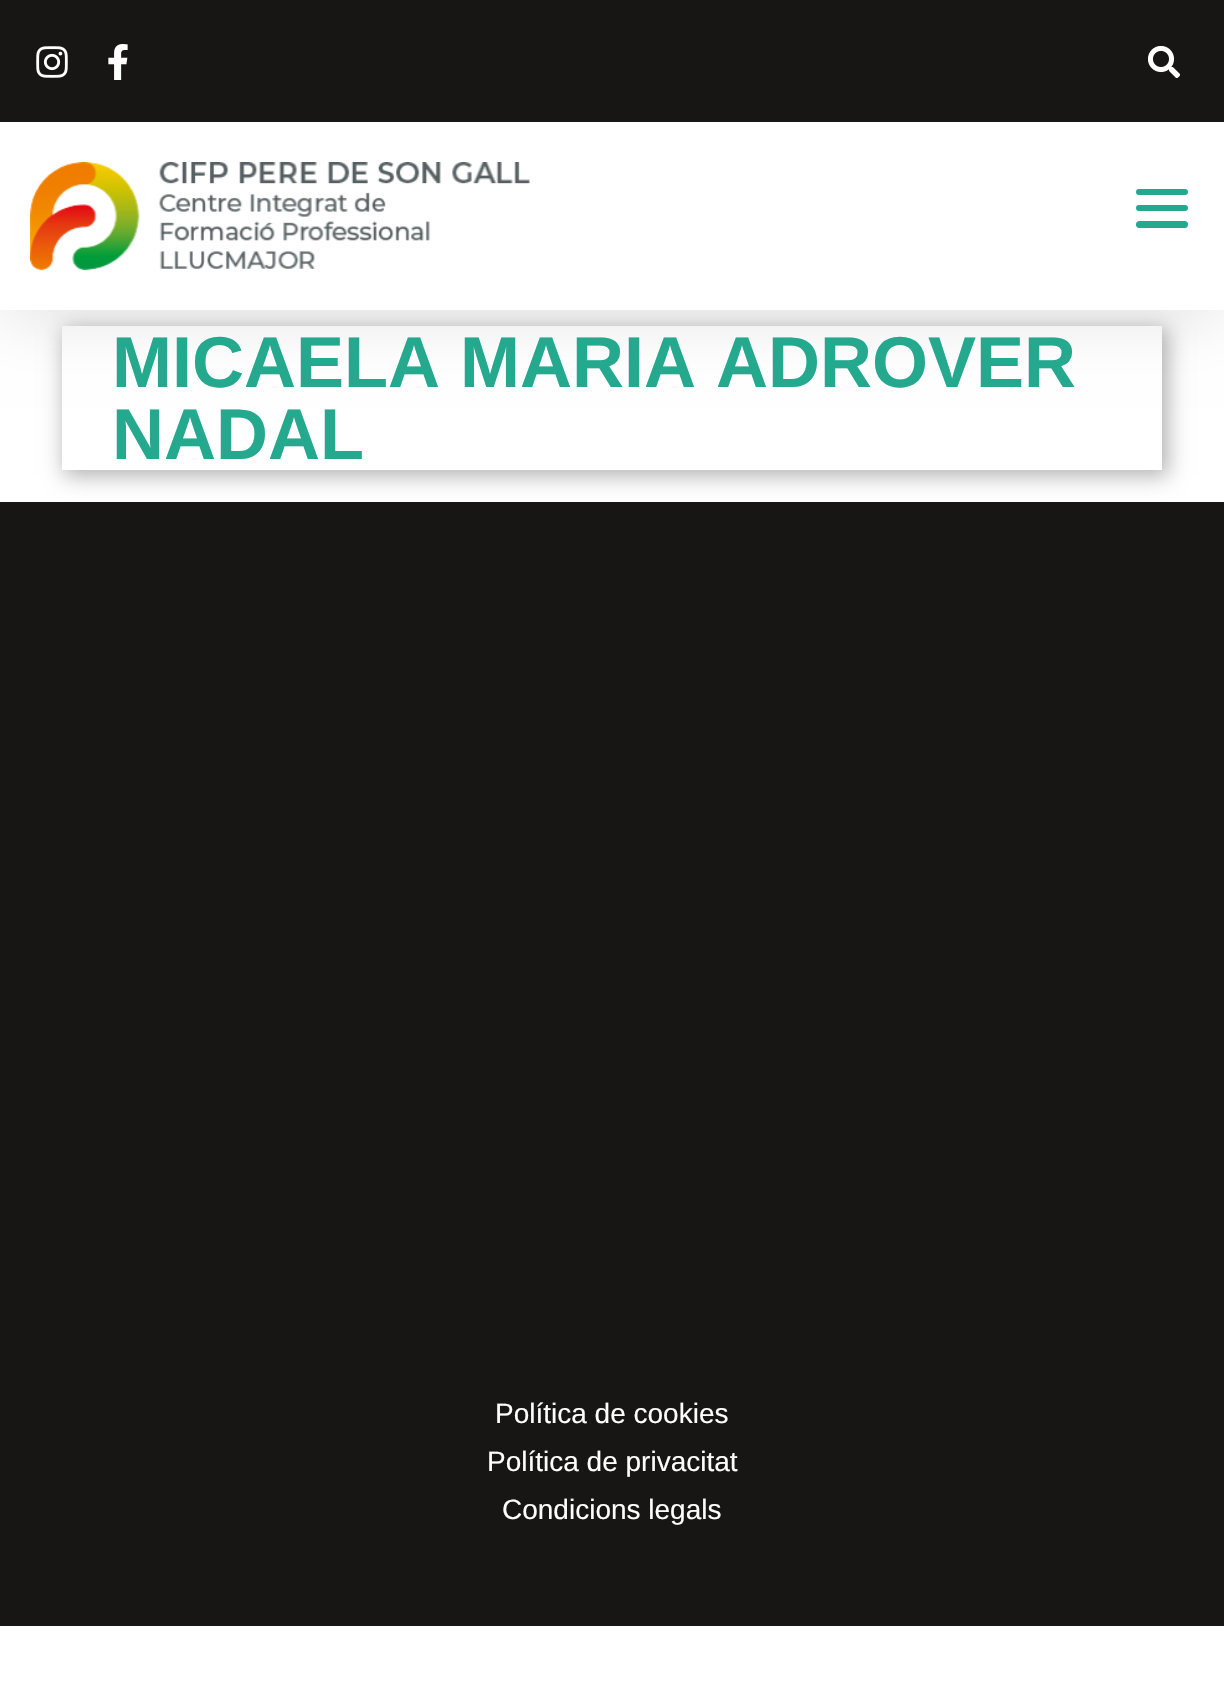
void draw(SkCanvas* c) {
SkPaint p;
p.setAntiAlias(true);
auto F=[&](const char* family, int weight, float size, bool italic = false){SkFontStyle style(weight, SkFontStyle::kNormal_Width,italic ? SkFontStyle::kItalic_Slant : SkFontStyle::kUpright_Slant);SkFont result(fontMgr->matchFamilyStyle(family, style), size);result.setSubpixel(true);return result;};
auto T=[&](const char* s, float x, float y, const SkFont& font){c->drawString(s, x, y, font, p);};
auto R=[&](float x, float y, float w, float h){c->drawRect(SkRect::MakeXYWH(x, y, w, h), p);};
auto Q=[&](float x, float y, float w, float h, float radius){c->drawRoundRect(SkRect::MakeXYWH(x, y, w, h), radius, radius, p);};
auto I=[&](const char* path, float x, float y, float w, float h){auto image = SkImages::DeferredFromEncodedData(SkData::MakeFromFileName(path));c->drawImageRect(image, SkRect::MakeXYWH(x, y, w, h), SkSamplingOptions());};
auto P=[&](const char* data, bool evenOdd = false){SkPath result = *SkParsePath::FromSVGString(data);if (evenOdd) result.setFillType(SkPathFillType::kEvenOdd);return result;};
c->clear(0xffffffff);
p.setColor(0x1a000000);
p.setMaskFilter(SkMaskFilter::MakeBlur(kNormal_SkBlurStyle, 30));
c->drawRect(SkRect::MakeXYWH(0,10,1224,310),p);
p.setMaskFilter(nullptr);
p.setColor(0xff181614);
R(0,0,1224,122);
I("1.png",36,46,32,32);
I("2.png",108,44,20,36);
I("3.png",1148,46,32,32);
c->save();
c->clipPath(P("M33 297h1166v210h-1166zm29 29h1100v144h-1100z",true),true);
p.setColor(0x4d000000);
p.setMaskFilter(SkMaskFilter::MakeBlur(kNormal_SkBlurStyle, 10));
c->drawRect(SkRect::MakeXYWH(64,328,1104,148),p);
p.setMaskFilter(nullptr);
c->restore();
p.setColor(0xffffffff);
R(0,122,1224,188);
I("4.png",30,162,500,109);
p.setColor(0xff24a88e);
Q(1136,189,52,6,3);
Q(1136,205,52,6,3);
Q(1136,221,52,7,3.5);
auto f1 = F("Liberation Sans",700,72);
T("MICAELA MARIA ADROVER",112,387,f1);
T("NADAL",112,459,f1);
p.setColor(0xff181614);
R(0,502,1224,1124);
auto f2 = F("Liberation Sans",400,28);
p.setColor(0xffffffff);
T("Política de cookies",495,1423,f2);
T("Política de privacitat",487,1471,f2);
T("Condicions legals",502,1519,f2);
}
